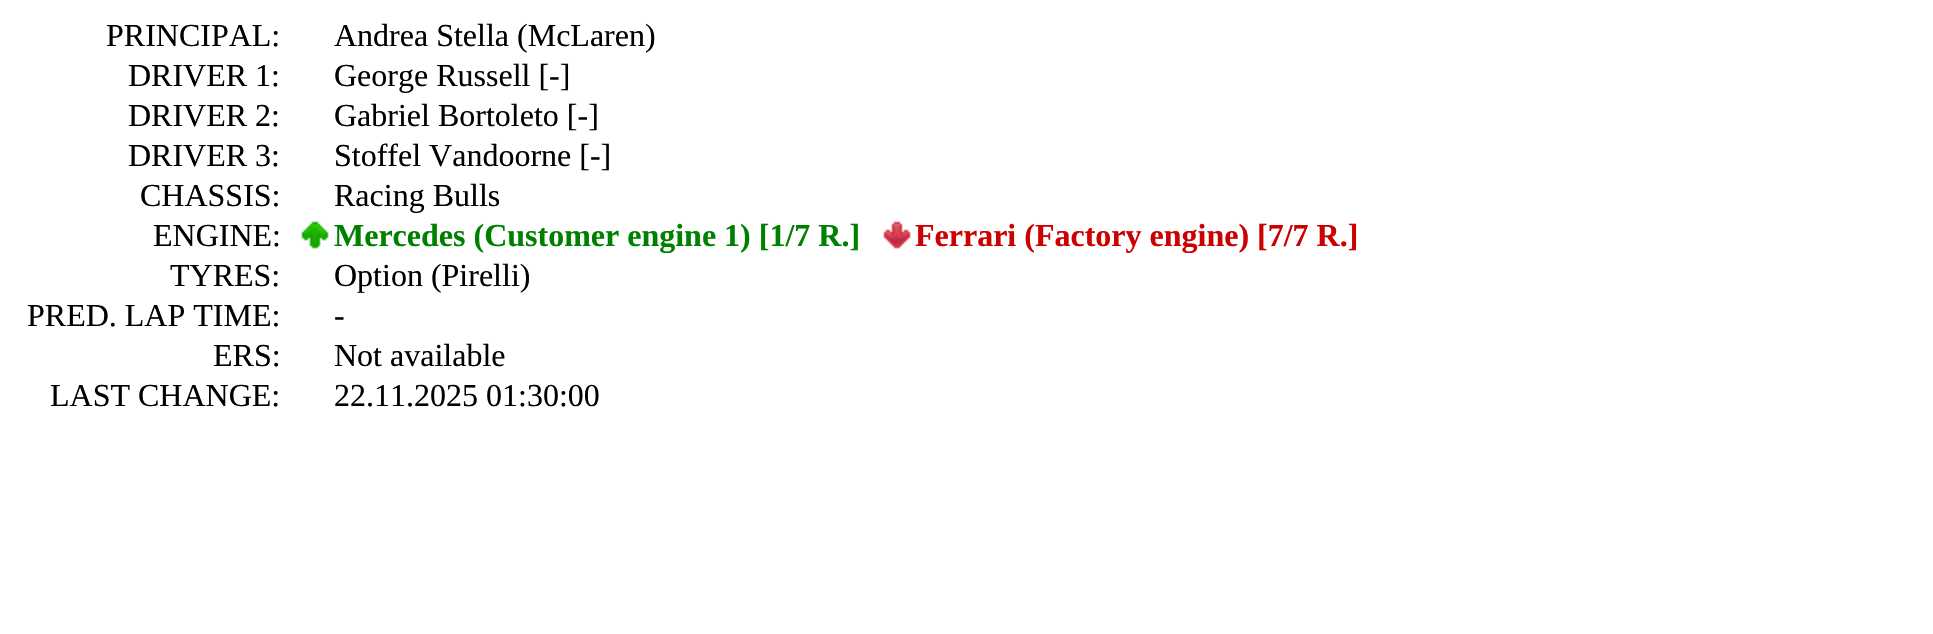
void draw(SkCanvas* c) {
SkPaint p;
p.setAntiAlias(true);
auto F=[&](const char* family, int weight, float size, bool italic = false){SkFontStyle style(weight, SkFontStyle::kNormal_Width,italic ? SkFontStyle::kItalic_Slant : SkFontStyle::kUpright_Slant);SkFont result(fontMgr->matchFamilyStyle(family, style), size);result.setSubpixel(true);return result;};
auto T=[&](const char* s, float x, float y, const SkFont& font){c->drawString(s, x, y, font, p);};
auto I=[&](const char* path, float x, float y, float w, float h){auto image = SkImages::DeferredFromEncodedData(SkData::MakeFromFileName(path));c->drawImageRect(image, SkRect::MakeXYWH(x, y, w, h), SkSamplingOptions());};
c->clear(0xffffffff);
auto f1 = F("Liberation Serif",400,32);
p.setColor(0xff000000);
T("PRINCIPAL:",106,46,f1);
T("Andrea Stella (McLaren)",334,46,f1);
T("DRIVER 1:",128,86,f1);
T("George Russell [-]",334,86,f1);
T("DRIVER 2:",128,126,f1);
T("Gabriel Bortoleto [-]",334,126,f1);
T("DRIVER 3:",128,166,f1);
T("Stoffel Vandoorne [-]",334,166,f1);
T("CHASSIS:",140,206,f1);
T("Racing Bulls",334,206,f1);
T("ENGINE:",153,246,f1);
I("1.png",301,221,28,28);
auto f2 = F("Liberation Serif",700,32);
p.setColor(0xff008000);
T("Mercedes (Customer engine 1) [1/7 R.]",334,246,f2);
I("2.png",883,221,28,28);
p.setColor(0xffcc0000);
T("Ferrari (Factory engine) [7/7 R.]",915,246,f2);
p.setColor(0xff000000);
T("TYRES:",170,286,f1);
T("Option (Pirelli)",334,286,f1);
T("PRED. LAP TIME:",27,326,f1);
T("-",334,326,f1);
T("ERS:",213,366,f1);
T("Not available",334,366,f1);
T("LAST CHANGE:",50,406,f1);
T("22.11.2025 01:30:00",334,406,f1);
}
